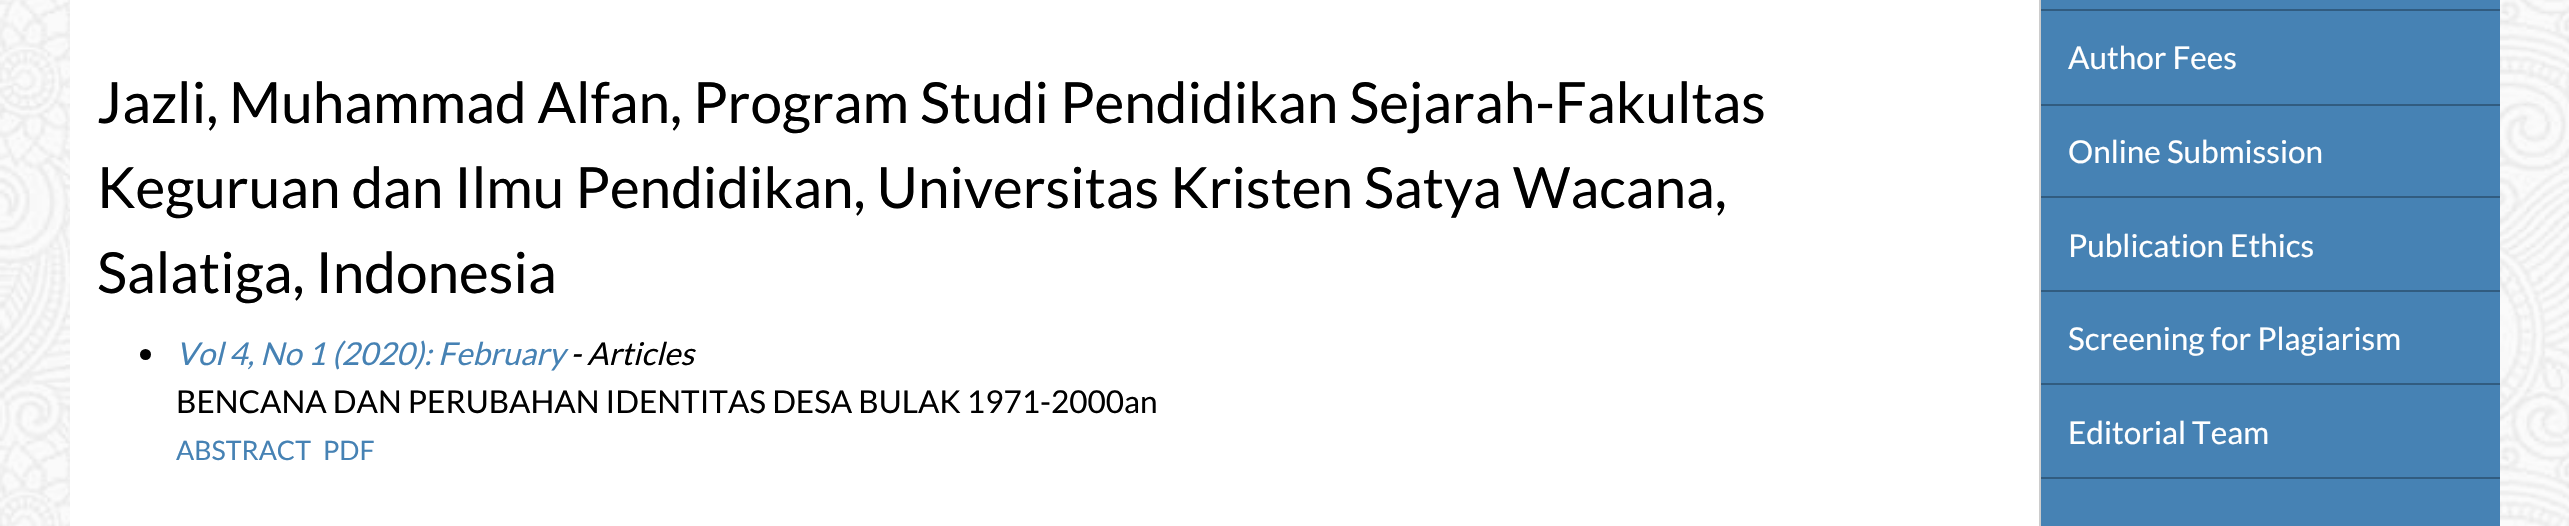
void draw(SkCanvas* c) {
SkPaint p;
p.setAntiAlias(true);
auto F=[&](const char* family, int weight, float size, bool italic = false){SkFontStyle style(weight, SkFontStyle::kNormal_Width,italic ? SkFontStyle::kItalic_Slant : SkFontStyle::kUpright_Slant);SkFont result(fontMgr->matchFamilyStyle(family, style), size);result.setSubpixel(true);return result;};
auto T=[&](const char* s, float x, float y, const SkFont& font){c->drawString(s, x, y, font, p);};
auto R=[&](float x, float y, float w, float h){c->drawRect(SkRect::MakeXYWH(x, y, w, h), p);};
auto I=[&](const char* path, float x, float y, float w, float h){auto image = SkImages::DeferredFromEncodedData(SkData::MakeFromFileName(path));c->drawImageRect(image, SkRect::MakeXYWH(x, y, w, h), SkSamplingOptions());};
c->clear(0xffffffff);
I("1.png",0,0,2569,526);
p.setColor(0xffffffff);
R(70,0,1969,526);
auto f1 = F("Lato",400,56.7);
p.setColor(0xff000000);
T("Jazli, Muhammad Alfan, Program Studi Pendidikan Sejarah-Fakultas",97,123,f1);
T("Keguruan dan Ilmu Pendidikan, Universitas Kristen Satya Wacana,",97,208,f1);
T("Salatiga, Indonesia",97,293,f1);
c->drawCircle(145.5,354.5,5.5,p);
auto f2 = F("Lato",400,31.5,true);
p.setColor(0xff4682b4);
T("Vol 4, No 1 (2020): February",176,365,f2);
p.setColor(0xff000000);
T("- Articles",570,365,f2);
auto f3 = F("Lato",400,31.5);
T("BENCANA DAN PERUBAHAN IDENTITAS DESA BULAK 1971-2000an",176,413,f3);
auto f4 = F("Lato",400,26.75);
p.setColor(0xff4682b4);
T("ABSTRACT",176,460,f4);
T("PDF",323,460,f4);
p.setColor(0xffcccccc);
R(2039,0,2,526);
p.setColor(0xff4682b4);
R(2041,0,459,9);
p.setColor(0xff315c80);
R(2041,9,459,2);
p.setColor(0xff4682b4);
R(2041,11,459,93);
p.setColor(0xff315c80);
R(2041,104,459,2);
p.setColor(0xffffffff);
T("Author Fees",2068,69,f3);
p.setColor(0xff4682b4);
R(2041,106,459,90);
p.setColor(0xff315c80);
R(2041,196,459,2);
p.setColor(0xffffffff);
T("Online Submission",2068,163,f3);
p.setColor(0xff4682b4);
R(2041,198,459,185);
p.setColor(0xff315c80);
R(2041,290,459,2);
p.setColor(0xffffffff);
T("Publication Ethics",2068,257,f3);
p.setColor(0xff315c80);
R(2041,383,459,2);
p.setColor(0xffffffff);
T("Screening for Plagiarism",2068,350,f3);
p.setColor(0xff4682b4);
R(2041,385,459,92);
p.setColor(0xff315c80);
R(2041,477,459,2);
p.setColor(0xffffffff);
T("Editorial Team",2068,444,f3);
p.setColor(0xff4682b4);
R(2041,479,459,47);
}
